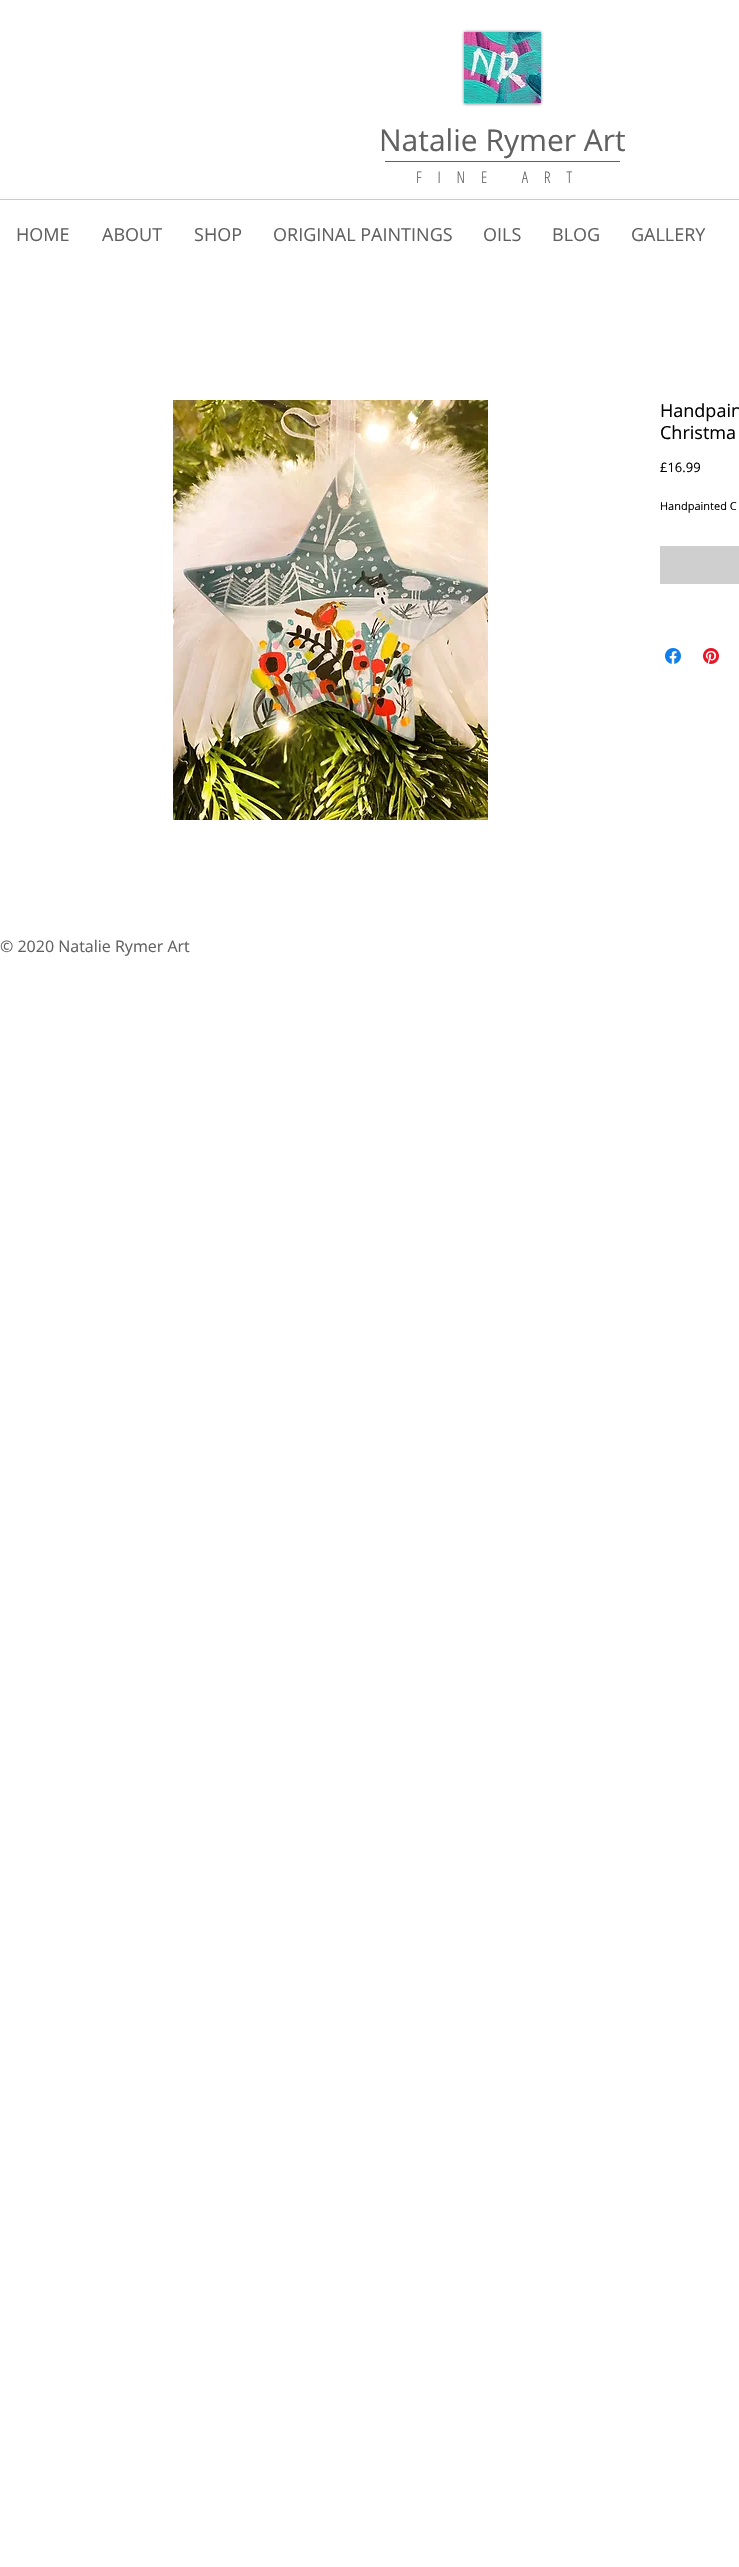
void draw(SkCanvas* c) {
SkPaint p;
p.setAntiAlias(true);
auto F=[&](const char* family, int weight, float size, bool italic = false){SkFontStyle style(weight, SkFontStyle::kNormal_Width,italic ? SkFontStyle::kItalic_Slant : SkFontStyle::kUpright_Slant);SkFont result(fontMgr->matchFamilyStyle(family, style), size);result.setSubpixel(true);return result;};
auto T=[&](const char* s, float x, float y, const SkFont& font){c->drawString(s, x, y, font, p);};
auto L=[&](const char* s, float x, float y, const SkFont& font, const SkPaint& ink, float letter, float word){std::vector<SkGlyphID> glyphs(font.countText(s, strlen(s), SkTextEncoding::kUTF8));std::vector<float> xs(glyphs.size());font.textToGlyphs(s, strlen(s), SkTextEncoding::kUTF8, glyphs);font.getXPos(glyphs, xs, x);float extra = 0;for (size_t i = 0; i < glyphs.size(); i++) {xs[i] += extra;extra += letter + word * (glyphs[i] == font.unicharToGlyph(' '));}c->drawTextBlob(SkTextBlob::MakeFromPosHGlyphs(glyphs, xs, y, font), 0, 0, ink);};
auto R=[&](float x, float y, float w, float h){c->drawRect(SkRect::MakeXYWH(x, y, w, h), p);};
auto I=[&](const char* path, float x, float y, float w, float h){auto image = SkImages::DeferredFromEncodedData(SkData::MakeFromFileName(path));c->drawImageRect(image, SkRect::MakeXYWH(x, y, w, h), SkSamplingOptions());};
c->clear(0xffffffff);
p.setColor(0x80000000);
p.setMaskFilter(SkMaskFilter::MakeBlur(kNormal_SkBlurStyle, 1.5));
c->drawRect(SkRect::MakeXYWH(464,32,77,72),p);
p.setMaskFilter(nullptr);
I("1.png",464,32,77,71);
auto f1 = F("Open Sans",400,30);
p.setColor(0xff606060);
T("Natalie Rymer Art",379,151,f1);
R(385,161,235,1);
auto f2 = F("Open Sans Condensed",300,16);
L("F I N E   A R T",416,183,f2,p,6.4,0);
p.setColor(0xffcacaca);
R(0,199,739,1);
auto f3 = F("Open Sans",400,18);
p.setColor(0xff606060);
T("HOME",16,241,f3);
T("ABOUT",102,241,f3);
T("SHOP",194,241,f3);
T("ORIGINAL PAINTINGS",273,241,f3);
T("OILS",483,241,f3);
T("BLOG",552,241,f3);
T("GALLERY",631,241,f3);
I("2.png",173,400,315,420);
p.setColor(0xff000000);
T("Handpain",660,417,f3);
T("Christma",660,439,f3);
auto f4 = F("Open Sans",400,13);
T("£16.99",660,472,f4);
auto f5 = F("Open Sans",400,11);
T("Handpainted C",660,510,f5);
p.setColor(0xffcfcfcf);
R(660,546,79,38);
I("3.png",665,648,16,16);
I("4.png",703,648,16,16);
auto f6 = F("Open Sans",400,16);
p.setColor(0xff606060);
T("© 2020 Natalie Rymer Art",0,952,f6);
}
